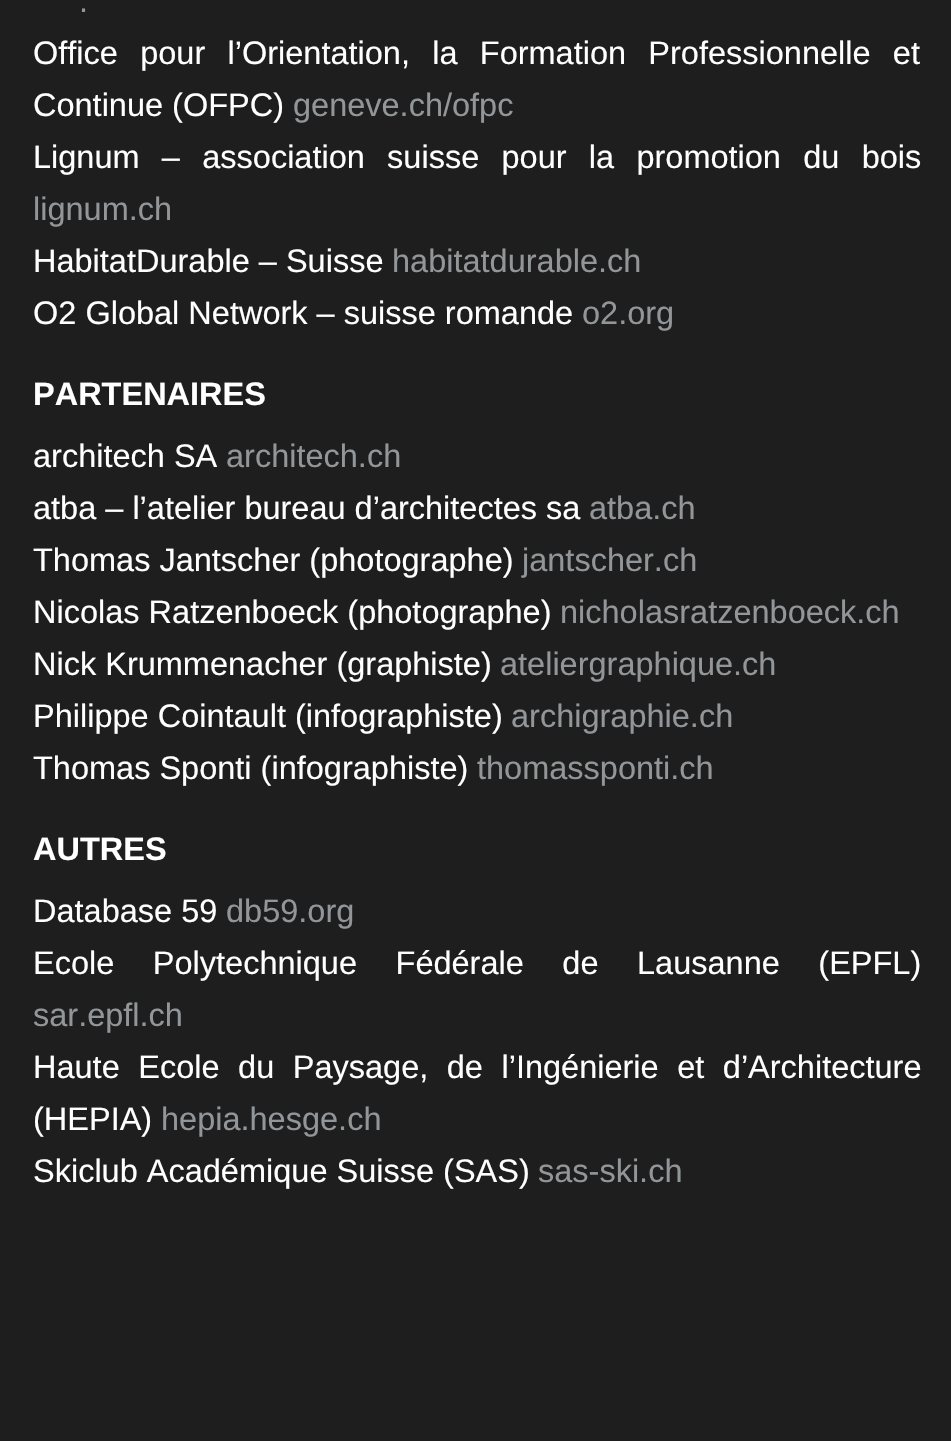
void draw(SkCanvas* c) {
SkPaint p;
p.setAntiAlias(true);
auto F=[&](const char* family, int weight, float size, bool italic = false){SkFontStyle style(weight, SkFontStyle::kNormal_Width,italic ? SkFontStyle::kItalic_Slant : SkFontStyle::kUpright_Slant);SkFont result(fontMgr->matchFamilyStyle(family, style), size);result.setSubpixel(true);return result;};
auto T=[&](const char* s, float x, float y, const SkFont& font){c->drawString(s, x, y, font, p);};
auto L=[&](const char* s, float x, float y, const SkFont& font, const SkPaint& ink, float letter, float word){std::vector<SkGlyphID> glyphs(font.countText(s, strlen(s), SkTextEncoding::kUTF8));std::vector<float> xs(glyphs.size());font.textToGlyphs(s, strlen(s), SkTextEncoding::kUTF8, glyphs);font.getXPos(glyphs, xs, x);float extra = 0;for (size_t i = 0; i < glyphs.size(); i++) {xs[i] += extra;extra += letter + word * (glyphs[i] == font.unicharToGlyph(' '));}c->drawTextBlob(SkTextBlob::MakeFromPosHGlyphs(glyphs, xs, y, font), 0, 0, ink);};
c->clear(0xff1e1e1e);
auto f1 = F("Liberation Sans",400,32.5);
p.setColor(0xff929699);
T(".",79,12,f1);
p.setColor(0xffffffff);
L("Office pour l’Orientation, la Formation Professionnelle et",33,64,f1,p,0,13.25);
T("Continue (OFPC)",33,116,f1);
p.setColor(0xff929699);
T("geneve.ch/ofpc",293,116,f1);
p.setColor(0xffffffff);
L("Lignum – association suisse pour la promotion du bois",33,168,f1,p,0,13.25);
p.setColor(0xff929699);
T("lignum.ch",33,220,f1);
p.setColor(0xffffffff);
T("HabitatDurable – Suisse",33,272,f1);
p.setColor(0xff929699);
T("habitatdurable.ch",392,272,f1);
p.setColor(0xffffffff);
T("O2 Global Network – suisse romande",33,324,f1);
p.setColor(0xff929699);
T("o2.org",582,324,f1);
auto f2 = F("Liberation Sans",700,32.5);
p.setColor(0xffffffff);
T("PARTENAIRES",33,405,f2);
T("architech SA",33,467,f1);
p.setColor(0xff929699);
T("architech.ch",226,467,f1);
p.setColor(0xffffffff);
T("atba – l’atelier bureau d’architectes sa",33,519,f1);
p.setColor(0xff929699);
T("atba.ch",589,519,f1);
p.setColor(0xffffffff);
T("Thomas Jantscher (photographe)",33,571,f1);
p.setColor(0xff929699);
T("jantscher.ch",522,571,f1);
p.setColor(0xffffffff);
T("Nicolas Ratzenboeck (photographe)",33,623,f1);
p.setColor(0xff929699);
T("nicholasratzenboeck.ch",560,623,f1);
p.setColor(0xffffffff);
T("Nick Krummenacher (graphiste)",33,675,f1);
p.setColor(0xff929699);
T("ateliergraphique.ch",500,675,f1);
p.setColor(0xffffffff);
T("Philippe Cointault (infographiste)",33,727,f1);
p.setColor(0xff929699);
T("archigraphie.ch",511,727,f1);
p.setColor(0xffffffff);
T("Thomas Sponti (infographiste)",33,779,f1);
p.setColor(0xff929699);
T("thomassponti.ch",477,779,f1);
p.setColor(0xffffffff);
T("AUTRES",33,860,f2);
T("Database 59",33,922,f1);
p.setColor(0xff929699);
T("db59.org",226,922,f1);
p.setColor(0xffffffff);
L("Ecole Polytechnique Fédérale de Lausanne (EPFL)",33,974,f1,p,0,29.5);
p.setColor(0xff929699);
T("sar.epfl.ch",33,1026,f1);
p.setColor(0xffffffff);
L("Haute Ecole du Paysage, de l’Ingénierie et d’Architecture",33,1078,f1,p,0,9.5);
T("(HEPIA)",33,1130,f1);
p.setColor(0xff929699);
T("hepia.hesge.ch",161,1130,f1);
p.setColor(0xffffffff);
T("Skiclub Académique Suisse (SAS)",33,1182,f1);
p.setColor(0xff929699);
T("sas-ski.ch",538,1182,f1);
}
